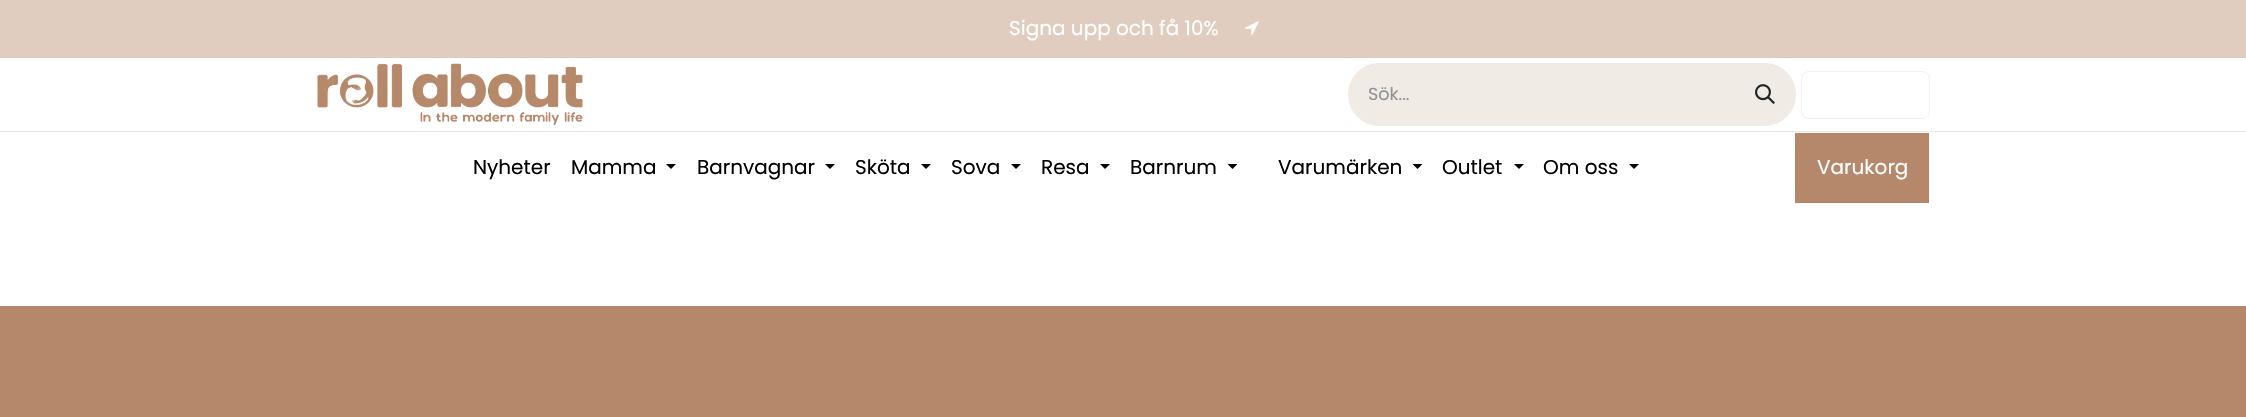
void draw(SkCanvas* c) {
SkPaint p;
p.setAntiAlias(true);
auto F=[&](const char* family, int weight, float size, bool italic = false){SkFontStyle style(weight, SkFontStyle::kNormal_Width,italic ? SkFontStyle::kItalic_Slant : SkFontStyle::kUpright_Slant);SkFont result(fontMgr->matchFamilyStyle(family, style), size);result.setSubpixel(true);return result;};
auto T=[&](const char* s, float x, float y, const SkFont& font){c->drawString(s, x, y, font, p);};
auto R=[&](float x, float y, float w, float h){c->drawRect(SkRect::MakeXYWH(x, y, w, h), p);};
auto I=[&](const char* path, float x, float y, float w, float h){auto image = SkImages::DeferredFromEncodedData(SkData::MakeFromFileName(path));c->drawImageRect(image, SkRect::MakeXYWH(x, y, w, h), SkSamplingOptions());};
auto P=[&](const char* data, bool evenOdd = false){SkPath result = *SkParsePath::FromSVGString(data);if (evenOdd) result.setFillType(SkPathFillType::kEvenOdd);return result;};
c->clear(0xffffffff);
p.setColor(0xffe0cdc0);
R(0,0,2246,58);
auto f1 = F("Poppins",400,20);
p.setColor(0xffffffff);
T("Signa upp och få 10%",1009,35,f1);
I("1.png",1245,21,14,14);
I("2.png",317,63,266,62);
p.setColor(0xfff1ebe6);
c->drawPath(P("M1379.5 63h355.5v63h-355.5c-17.5 0-31.5-14-31.5-31.5c0-17.5 14-31.5 31.5-31.5z"),p);
auto f2 = F("Poppins",400,17.5);
p.setColor(0xff909294);
T("Sök...",1368,100,f2);
p.setColor(0xfff1ebe6);
c->drawPath(P("M1734 63h30.5c17.5 0 31.5 14 31.5 31.5c0 17.5-14 31.5-31.5 31.5h-30.5z"),p);
I("3.png",1755,84,20,20);
p.setStroke(true);
p.setStrokeWidth(1);
p.setColor(0xfff1f1f1);
c->drawRoundRect(SkRect::MakeXYWH(1801.5,71.5,128,47),7.5,7.5,p);
p.setStroke(false);
p.setColor(0xffe6e6e6);
R(0,131,2246,1);
p.setColor(0xff000000);
T("Nyheter",473,174,f1);
T("Mamma",571,174,f1);
c->drawPath(P("M666 164h10l-5 5z"),p);
T("Barnvagnar",697,174,f1);
c->drawPath(P("M825 164h10l-5 5z"),p);
T("Sköta",855,174,f1);
c->drawPath(P("M921 164h10l-5 5z"),p);
T("Sova",951,174,f1);
c->drawPath(P("M1011 164h10l-5 5z"),p);
T("Resa",1041,174,f1);
c->drawPath(P("M1100 164h10l-5 5z"),p);
T("Barnrum",1130,174,f1);
c->drawPath(P("M1227.5 164h10l-5 5z"),p);
T("Varumärken",1278,174,f1);
c->drawPath(P("M1412.5 164h10l-5 5z"),p);
T("Outlet",1442,174,f1);
c->drawPath(P("M1514 164h10l-5 5z"),p);
T("Om oss",1543,174,f1);
c->drawPath(P("M1629 164h10l-5 5z"),p);
p.setColor(0xffb6886b);
R(1795,133,134,70);
p.setColor(0xffffffff);
T("Varukorg",1817,174,f1);
p.setColor(0xffb6886b);
R(0,306,2246,111);
}
